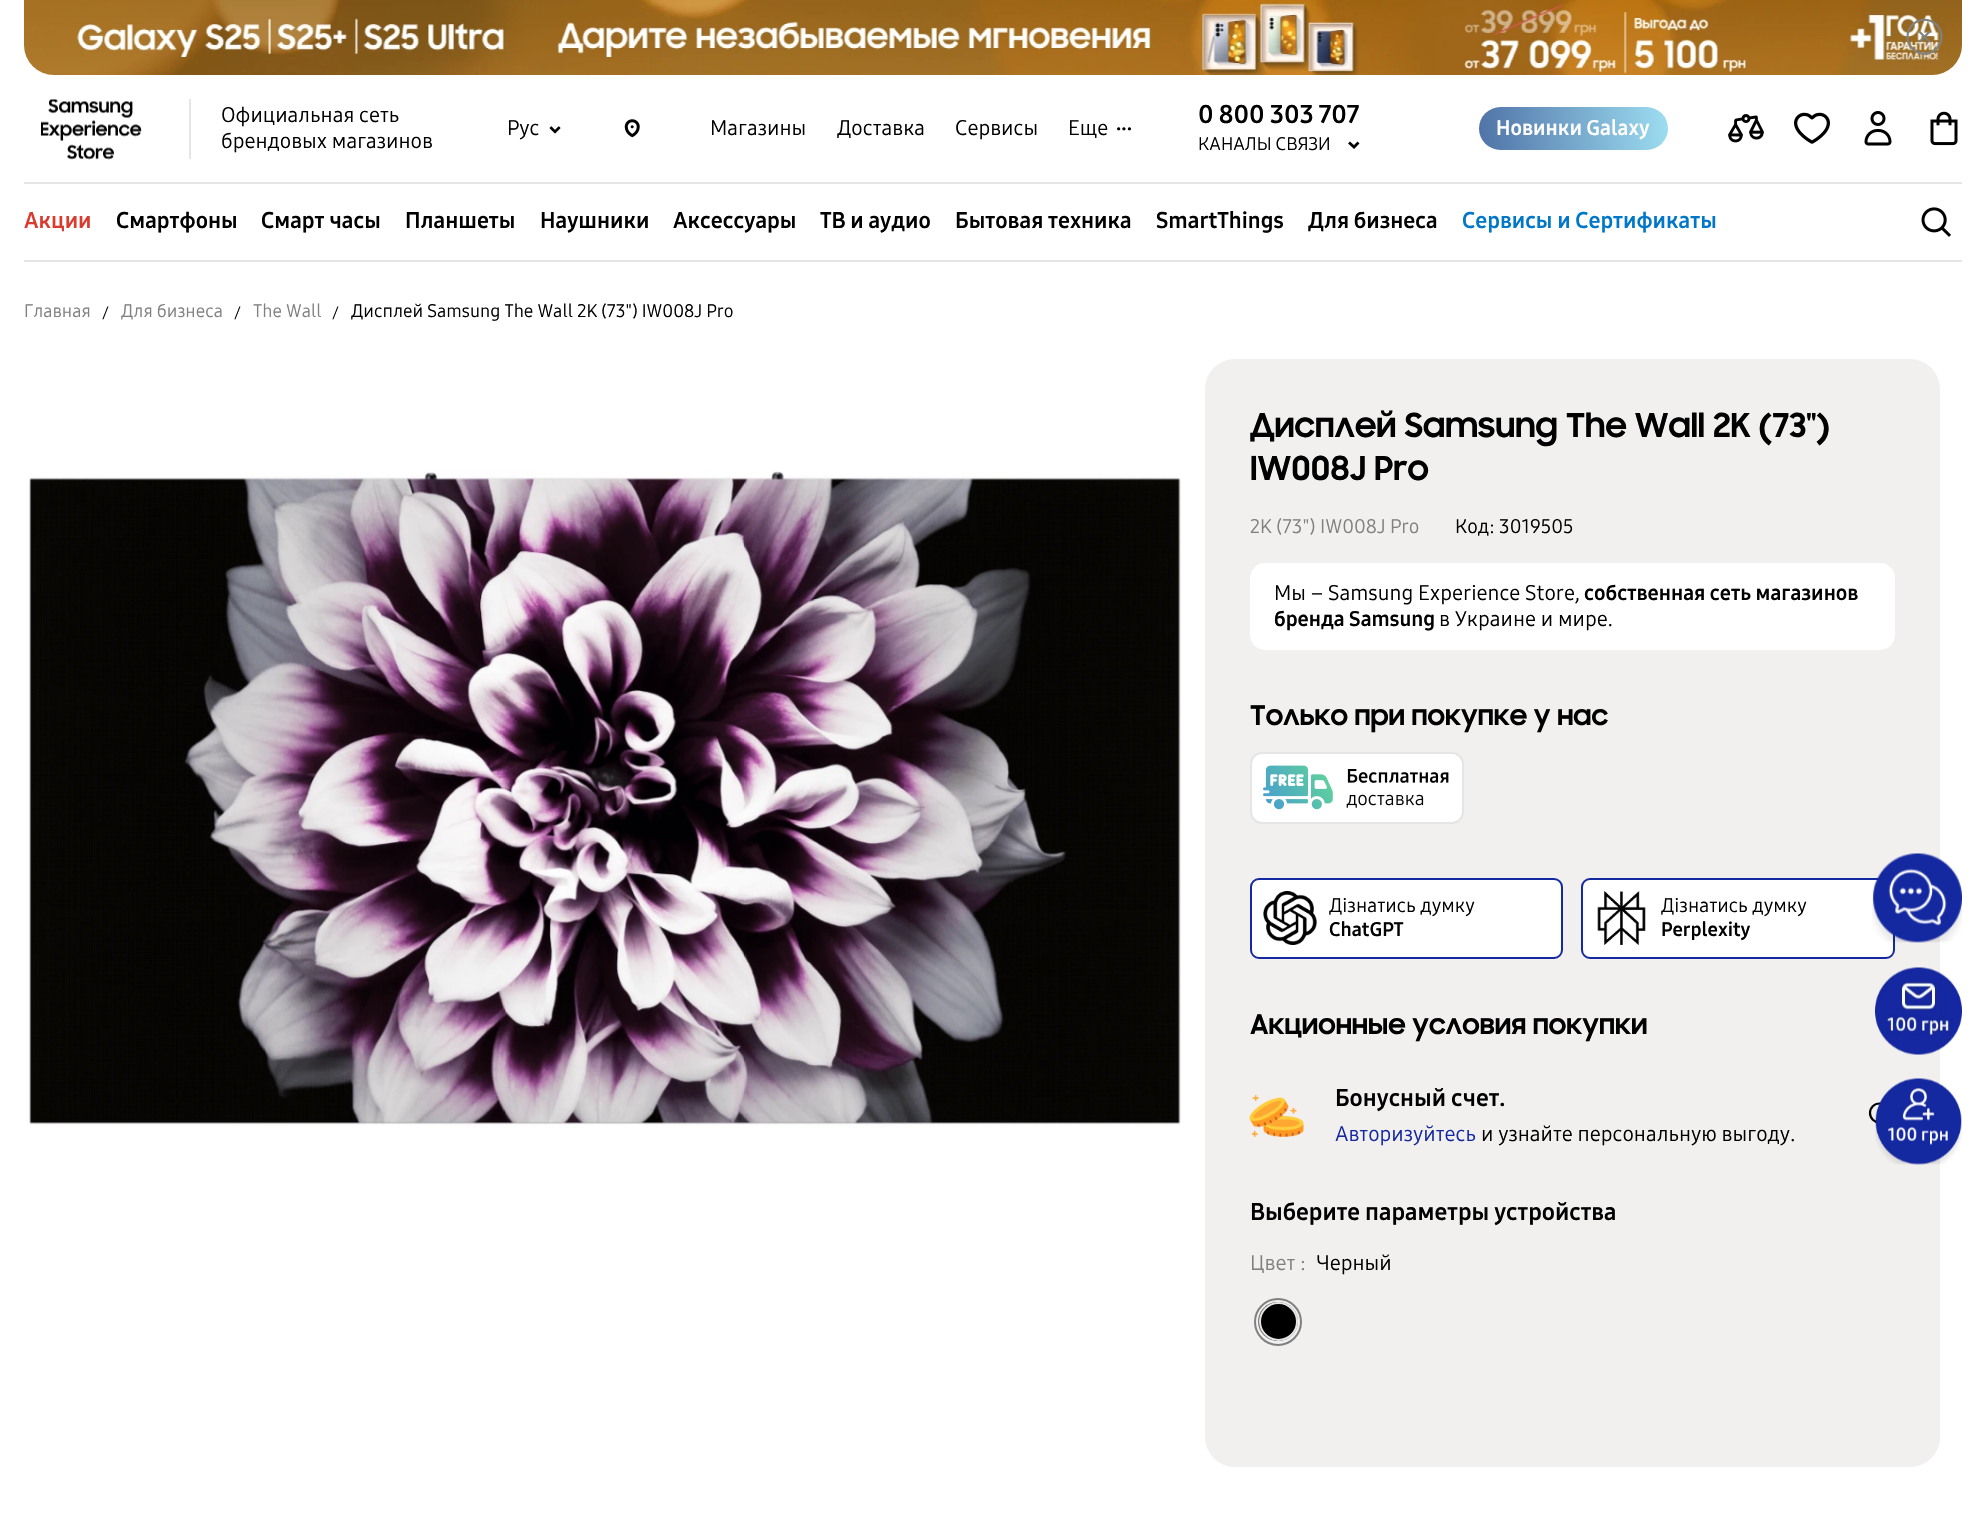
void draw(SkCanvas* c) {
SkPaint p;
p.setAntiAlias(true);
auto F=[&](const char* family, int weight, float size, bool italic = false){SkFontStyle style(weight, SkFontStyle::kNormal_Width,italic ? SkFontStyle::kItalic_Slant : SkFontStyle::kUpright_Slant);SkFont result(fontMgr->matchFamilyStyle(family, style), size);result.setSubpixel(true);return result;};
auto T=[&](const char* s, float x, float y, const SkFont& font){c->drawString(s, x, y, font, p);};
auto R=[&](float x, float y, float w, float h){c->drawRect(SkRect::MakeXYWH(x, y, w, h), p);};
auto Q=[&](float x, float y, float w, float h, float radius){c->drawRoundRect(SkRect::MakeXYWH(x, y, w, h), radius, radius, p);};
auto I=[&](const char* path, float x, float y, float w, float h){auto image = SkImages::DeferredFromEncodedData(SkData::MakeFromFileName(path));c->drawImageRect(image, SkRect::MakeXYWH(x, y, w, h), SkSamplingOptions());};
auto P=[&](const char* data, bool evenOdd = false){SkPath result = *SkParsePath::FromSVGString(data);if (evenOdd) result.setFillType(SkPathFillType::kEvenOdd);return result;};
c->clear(0xffffffff);
p.setColor(0xfff2f0ef);
c->drawPath(P("M24 0h1938v45c0 16.5-13.5 30-30 30h-1878c-16.5 0-30-13.5-30-30z"),p);
I("1.png",24,0,1938,75);
I("2.png",1906,18,37,37);
p.setColor(0xffe5e5e5);
R(24,182,1938,2);
R(189,99,2,60);
I("3.png",41,99,101,61);
auto f1 = F("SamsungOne",400,21);
p.setColor(0xff000000);
T("Официальная сеть",221,122,f1);
T("брендовых магазинов",221,148,f1);
T("Рус",507,135,f1);
I("4.png",549,126,12,8);
I("5.png",624,119,16,19);
T("Магазины",710,135,f1);
T("Доставка",837,135,f1);
T("Сервисы",955,135,f1);
T("Еще",1068,135,f1);
auto f2 = F("SamsungOne",700,21);
T("...",1116,130,f2);
auto f3 = F("SamsungOne",700,25.5);
T("0 800 303 707",1198,123,f3);
auto f4 = F("SamsungOne",400,18);
T("КАНАЛЫ СВЯЗИ",1198,150,f4);
p.setStroke(true);
p.setStrokeWidth(2.8);
c->drawPath(P("M1349 142.5l5 4.5l4.5-4.5"),p);
p.setStroke(false);
{
const SkColor colors[] = {0xff324a8b,0xffaaeffd};
const float stops[] = {0,1};
const SkPoint ends[] = {{1405,140}, {1701,120}};
p.setShader(SkGradientShader::MakeLinear(ends, colors, stops, 2, SkTileMode::kClamp));
p.setAlpha(255);
}
Q(1479,107,189,43,21.5);
p.setShader(nullptr);
p.setColor(0xffffffff);
T("Новинки Galaxy",1496,135,f2);
I("6.png",1728,114,36,29);
I("7.png",1794,112,36,32);
I("8.png",1864,111,28,35);
I("9.png",1930,111,28,35);
p.setColor(0xffe5e5e5);
R(24,260,1938,2);
auto f5 = F("SamsungOne",700,22.5);
p.setColor(0xffda3b2f);
T("Акции",24,228,f5);
p.setColor(0xff000000);
T("Смартфоны",116,228,f5);
T("Смарт часы",261,228,f5);
T("Планшеты",405,228,f5);
T("Наушники",540,228,f5);
T("Аксессуары",673,228,f5);
T("ТВ и аудио",820,228,f5);
T("Бытовая техника",955,228,f5);
T("SmartThings",1156,228,f5);
T("Для бизнеса",1308,228,f5);
p.setColor(0xff0077c8);
T("Сервисы и Сертификаты",1462,228,f5);
I("10.png",1921,207,30,30);
p.setColor(0xff808080);
T("Главная",24,317,f4);
auto f6 = F("SamsungOne",400,16);
p.setColor(0xff000000);
T("/",102,318,f6);
p.setColor(0xff808080);
T("Для бизнеса",121,317,f4);
p.setColor(0xff000000);
T("/",234,318,f6);
p.setColor(0xff808080);
T("The Wall",253,317,f4);
p.setColor(0xff000000);
T("/",332,318,f6);
T("Дисплей Samsung The Wall 2K (73\") IW008J Pro",351,317,f4);
I("11.png",29,471,1152,657);
p.setColor(0xfff2f0ef);
Q(1205,359,735,1108,30);
auto f7 = F("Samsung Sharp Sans",700,33);
p.setColor(0xff000000);
T("Дисплей Samsung The Wall 2K (73\")",1250,437,f7);
T("IW008J Pro",1250,480,f7);
auto f8 = F("SamsungOne",400,19.5);
p.setColor(0xff808080);
T("2K (73\") IW008J Pro",1250,533,f8);
p.setColor(0xff000000);
T("Код: 3019505",1455,533,f8);
p.setColor(0xffffffff);
Q(1250,563,645,87,15);
p.setColor(0xff000000);
T("Мы – Samsung Experience Store,",1274,600,f1);
T("собственная сеть магазинов",1584,600,f2);
T("бренда Samsung",1274,626,f2);
T("в Украине и мире.",1439,626,f1);
auto f9 = F("Samsung Sharp Sans",700,27);
T("Только при покупке у нас",1250,725,f9);
p.setColor(0xffffffff);
c->drawRoundRect(SkRect::MakeXYWH(1251,753,212,70),11,11,p);
p.setStroke(true);
p.setStrokeWidth(2);
p.setColor(0xffe5e5e5);
c->drawRoundRect(SkRect::MakeXYWH(1251,753,212,70),11,11,p);
I("12.png",1263,765,186,45);
p.setStroke(false);
p.setColor(0xffffffff);
c->drawRoundRect(SkRect::MakeXYWH(1251,879,311,79),8,8,p);
p.setStroke(true);
p.setColor(0xff1428a0);
c->drawRoundRect(SkRect::MakeXYWH(1251,879,311,79),8,8,p);
I("13.png",1263,891,54,54);
p.setStroke(false);
p.setColor(0xff000000);
T("Дізнатись думку",1329,912,f8);
auto f10 = F("SamsungOne",700,19.5);
T("ChatGPT",1329,936,f10);
p.setColor(0xffffffff);
c->drawRoundRect(SkRect::MakeXYWH(1582,879,312,79),8,8,p);
p.setStroke(true);
p.setColor(0xff1428a0);
c->drawRoundRect(SkRect::MakeXYWH(1582,879,312,79),8,8,p);
I("14.png",1597,891,49,54);
p.setStroke(false);
p.setColor(0xff000000);
T("Дізнатись думку",1661,912,f8);
T("Perplexity",1661,936,f10);
T("Акционные условия покупки",1250,1034,f9);
I("15.png",1249,1095,55,42);
auto f11 = F("SamsungOne",700,24);
T("Бонусный счет.",1335,1106,f11);
p.setColor(0xff1428a0);
T("Авторизуйтесь",1335,1141,f1);
p.setColor(0xff000000);
T("и узнайте персональную выгоду.",1481,1141,f1);
p.setStroke(true);
p.setStrokeWidth(2.2);
c->drawCircle(1879.5,1113,9.5,p);
p.setStroke(false);
T("Выберите параметры устройства",1250,1220,f11);
p.setColor(0xff808080);
T("Цвет :",1250,1270,f1);
p.setColor(0xff000000);
T("Черный",1316,1270,f1);
I("16.png",1258,1302,40,39);
p.setStroke(true);
p.setStrokeWidth(2);
p.setColor(0xffe5e5e5);
c->drawCircle(1278.5,1321.5,18.5,p);
p.setColor(0xff808080);
c->drawCircle(1278,1322,23,p);
I("17.png",1872,853,90,90);
I("18.png",1875,967,87,88);
I("19.png",1875,1078,87,87);
}
